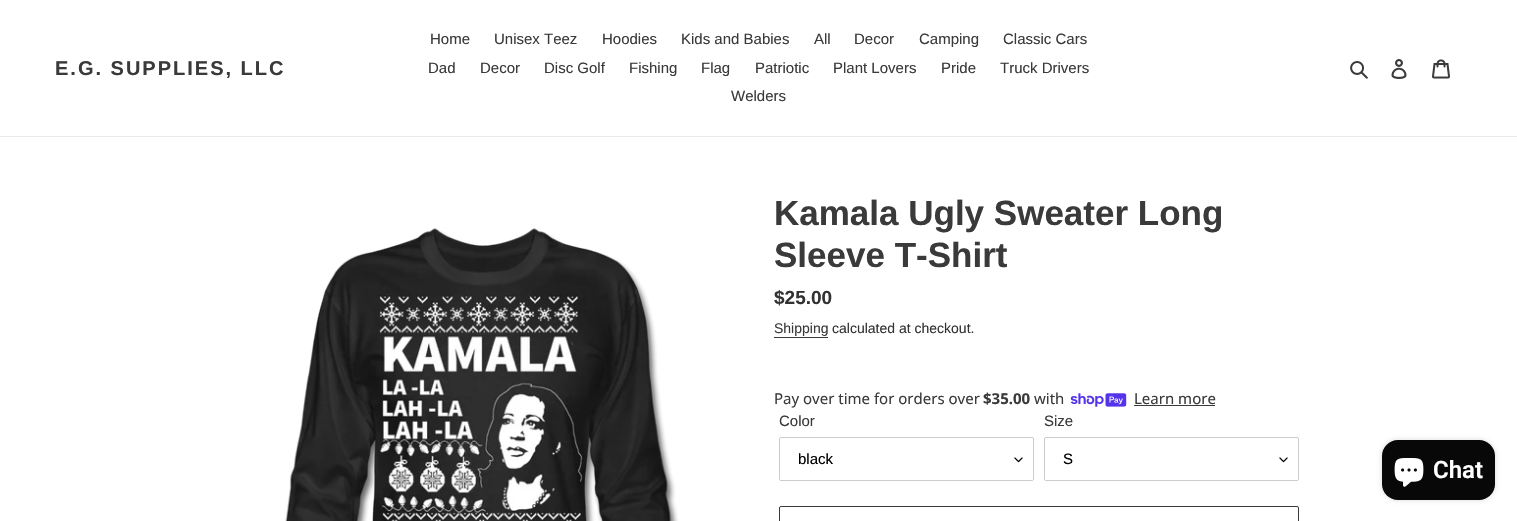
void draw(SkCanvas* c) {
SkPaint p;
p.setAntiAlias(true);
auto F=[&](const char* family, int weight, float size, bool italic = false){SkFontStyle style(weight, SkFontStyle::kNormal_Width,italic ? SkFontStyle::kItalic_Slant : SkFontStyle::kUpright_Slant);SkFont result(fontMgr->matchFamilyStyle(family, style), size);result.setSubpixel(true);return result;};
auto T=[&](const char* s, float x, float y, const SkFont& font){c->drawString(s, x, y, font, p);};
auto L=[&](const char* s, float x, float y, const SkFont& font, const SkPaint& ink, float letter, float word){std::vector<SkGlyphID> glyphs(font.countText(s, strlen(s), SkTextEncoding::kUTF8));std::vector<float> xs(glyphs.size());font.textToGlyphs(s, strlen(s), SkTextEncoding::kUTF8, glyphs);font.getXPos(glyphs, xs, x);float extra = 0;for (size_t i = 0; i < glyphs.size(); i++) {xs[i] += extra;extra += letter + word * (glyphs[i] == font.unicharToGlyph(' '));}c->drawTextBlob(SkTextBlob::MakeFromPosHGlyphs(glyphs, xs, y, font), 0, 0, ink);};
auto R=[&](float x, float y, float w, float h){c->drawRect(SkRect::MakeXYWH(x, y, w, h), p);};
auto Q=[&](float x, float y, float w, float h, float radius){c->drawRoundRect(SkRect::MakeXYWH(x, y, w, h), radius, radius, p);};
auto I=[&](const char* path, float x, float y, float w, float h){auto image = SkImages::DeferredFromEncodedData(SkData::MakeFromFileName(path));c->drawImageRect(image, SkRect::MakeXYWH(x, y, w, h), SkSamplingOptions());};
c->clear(0xffffffff);
p.setColor(0xffebebeb);
R(0,136,1517,1);
auto f1 = F("Liberation Sans",700,20);
p.setColor(0xff3a3a3a);
L("E.G. SUPPLIES, LLC",55,75,f1,p,2,0);
auto f2 = F("Liberation Sans",400,15);
T("Home",430,44,f2);
T("Unisex Teez",494,44,f2);
T("Hoodies",602,44,f2);
T("Kids and Babies",681,44,f2);
T("All",814,44,f2);
T("Decor",854,44,f2);
T("Camping",919,44,f2);
T("Classic Cars",1003,44,f2);
T("Dad",428,73,f2);
T("Decor",480,73,f2);
T("Disc Golf",544,73,f2);
T("Fishing",629,73,f2);
T("Flag",701,73,f2);
T("Patriotic",755,73,f2);
T("Plant Lovers",833,73,f2);
T("Pride",941,73,f2);
T("Truck Drivers",1000,73,f2);
T("Welders",731,101,f2);
I("1.png",1350,61,18,18);
I("2.png",1391,59,16,20);
I("3.png",1432,59,18,20);
I("4.png",285,228,393,293);
auto f3 = F("Liberation Sans",700,35);
T("Kamala Ugly Sweater Long",774,225,f3);
T("Sleeve T-Shirt",774,267,f3);
auto f4 = F("Liberation Sans",700,19);
p.setColor(0xff333232);
T("$25.00",774,304,f4);
auto f5 = F("Liberation Sans",400,14);
p.setColor(0xff3a3a3a);
T("Shipping",774,333,f5);
R(774,337,54,1);
p.setColor(0xff333232);
T("calculated at checkout.",832,333,f5);
auto f6 = F("Noto Sans",400,15);
p.setColor(0xff3a3a3a);
T("Pay over time for orders over",774,404,f6);
auto f7 = F("Noto Sans",700,15);
T("$35.00",983,404,f7);
T("with",1034,404,f6);
I("5.png",1070,393,57,14);
T("Learn more",1134,404,f6);
R(1134,405,81,1);
T("Color",779,426,f2);
I("6.png",1014,457,9,6);
p.setStroke(true);
p.setStrokeWidth(1);
p.setColor(0xffcccccc);
c->drawRoundRect(SkRect::MakeXYWH(779.5,437.5,254,43),1.5,1.5,p);
p.setStroke(false);
p.setColor(0xff000000);
T("black",798,464,f2);
p.setColor(0xff3a3a3a);
T("Size",1044,426,f2);
I("6.png",1279,457,9,6);
p.setStroke(true);
p.setColor(0xffcccccc);
c->drawRoundRect(SkRect::MakeXYWH(1044.5,437.5,254,43),1.5,1.5,p);
p.setStroke(false);
p.setColor(0xff000000);
T("S",1063,464,f2);
p.setStroke(true);
p.setColor(0xff3a3a3a);
c->drawRoundRect(SkRect::MakeXYWH(779.5,506.5,519,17),1.5,1.5,p);
p.setStroke(false);
p.setColor(0x26000000);
p.setMaskFilter(SkMaskFilter::MakeBlur(kNormal_SkBlurStyle, 2.5));
c->drawRoundRect(SkRect::MakeXYWH(1382,440,113,60),16,16,p);
p.setMaskFilter(nullptr);
p.setColor(0xff080809);
Q(1382,440,113,60,16);
I("7.png",1394,458,30,29);
auto f8 = F("Roboto",600,24);
p.setColor(0xffffffff);
T("Chat",1433,478,f8);
}
